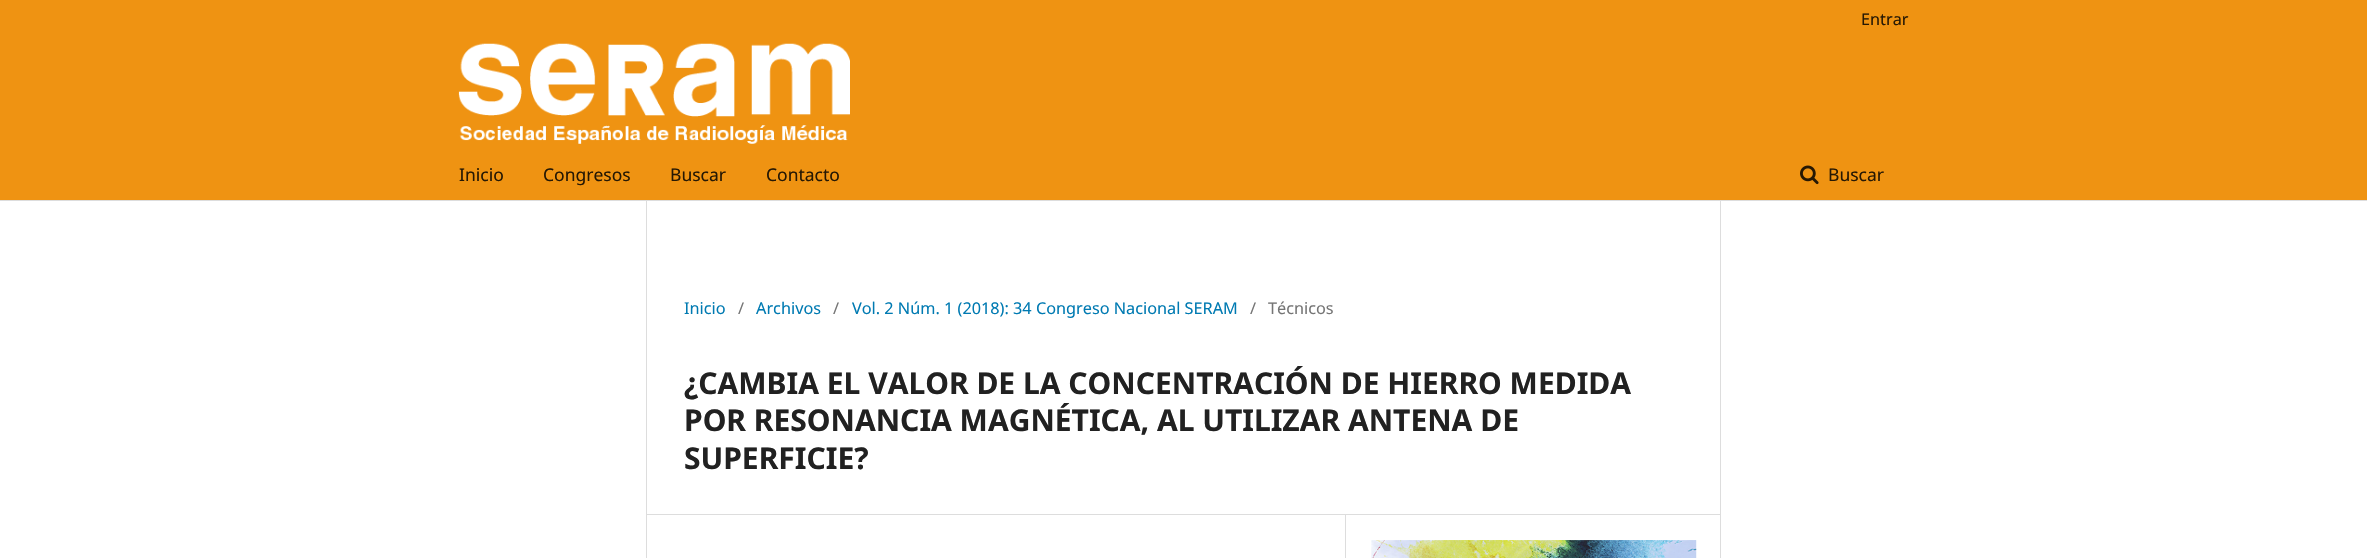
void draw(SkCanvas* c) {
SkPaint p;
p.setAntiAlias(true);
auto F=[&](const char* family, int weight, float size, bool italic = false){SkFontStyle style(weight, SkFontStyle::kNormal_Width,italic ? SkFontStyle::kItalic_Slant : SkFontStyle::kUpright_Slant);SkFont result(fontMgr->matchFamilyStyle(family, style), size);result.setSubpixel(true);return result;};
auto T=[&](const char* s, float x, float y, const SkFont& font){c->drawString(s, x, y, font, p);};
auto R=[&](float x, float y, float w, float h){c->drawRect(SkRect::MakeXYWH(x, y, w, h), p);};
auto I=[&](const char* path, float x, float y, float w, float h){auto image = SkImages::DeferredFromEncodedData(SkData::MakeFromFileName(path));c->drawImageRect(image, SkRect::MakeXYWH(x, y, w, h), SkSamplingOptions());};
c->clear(0xffffffff);
p.setColor(0xffef9312);
R(0,0,2367,200);
p.setColor(0xffdddddd);
R(0,200,2367,1);
auto f1 = F("Noto Sans",400,16.25);
p.setColor(0xff261803);
T("Entrar",1861,25,f1);
auto f2 = F("Noto Sans",400,17.5);
T("Inicio",459,181,f2);
T("Congresos",543,181,f2);
T("Buscar",670,181,f2);
T("Contacto",766,181,f2);
I("1.png",1800,165,19,20);
T("Buscar",1828,181,f2);
I("2.png",458,43,392,101);
p.setColor(0xffdddddd);
R(646,514,1075,1);
R(646,201,1,357);
p.setColor(0xff007ab2);
T("Inicio",684,314,f1);
p.setColor(0xff757575);
T("/",738,314,f1);
p.setColor(0xff007ab2);
T("Archivos",756,314,f1);
p.setColor(0xff757575);
T("/",833,314,f1);
p.setColor(0xff007ab2);
T("Vol. 2 Núm. 1 (2018): 34 Congreso Nacional SERAM",852,314,f1);
p.setColor(0xff757575);
T("/",1250,314,f1);
T("Técnicos",1268,314,f1);
auto f3 = F("Noto Sans",700,30);
p.setColor(0xff212121);
T("¿CAMBIA EL VALOR DE LA CONCENTRACIÓN DE HIERRO MEDIDA",684,394,f3);
T("POR RESONANCIA MAGNÉTICA, AL UTILIZAR ANTENA DE",684,431,f3);
T("SUPERFICIE?",684,469,f3);
p.setColor(0xffdddddd);
R(1345,515,1,43);
I("3.png",1371,540,326,18);
R(1720,201,1,357);
}
